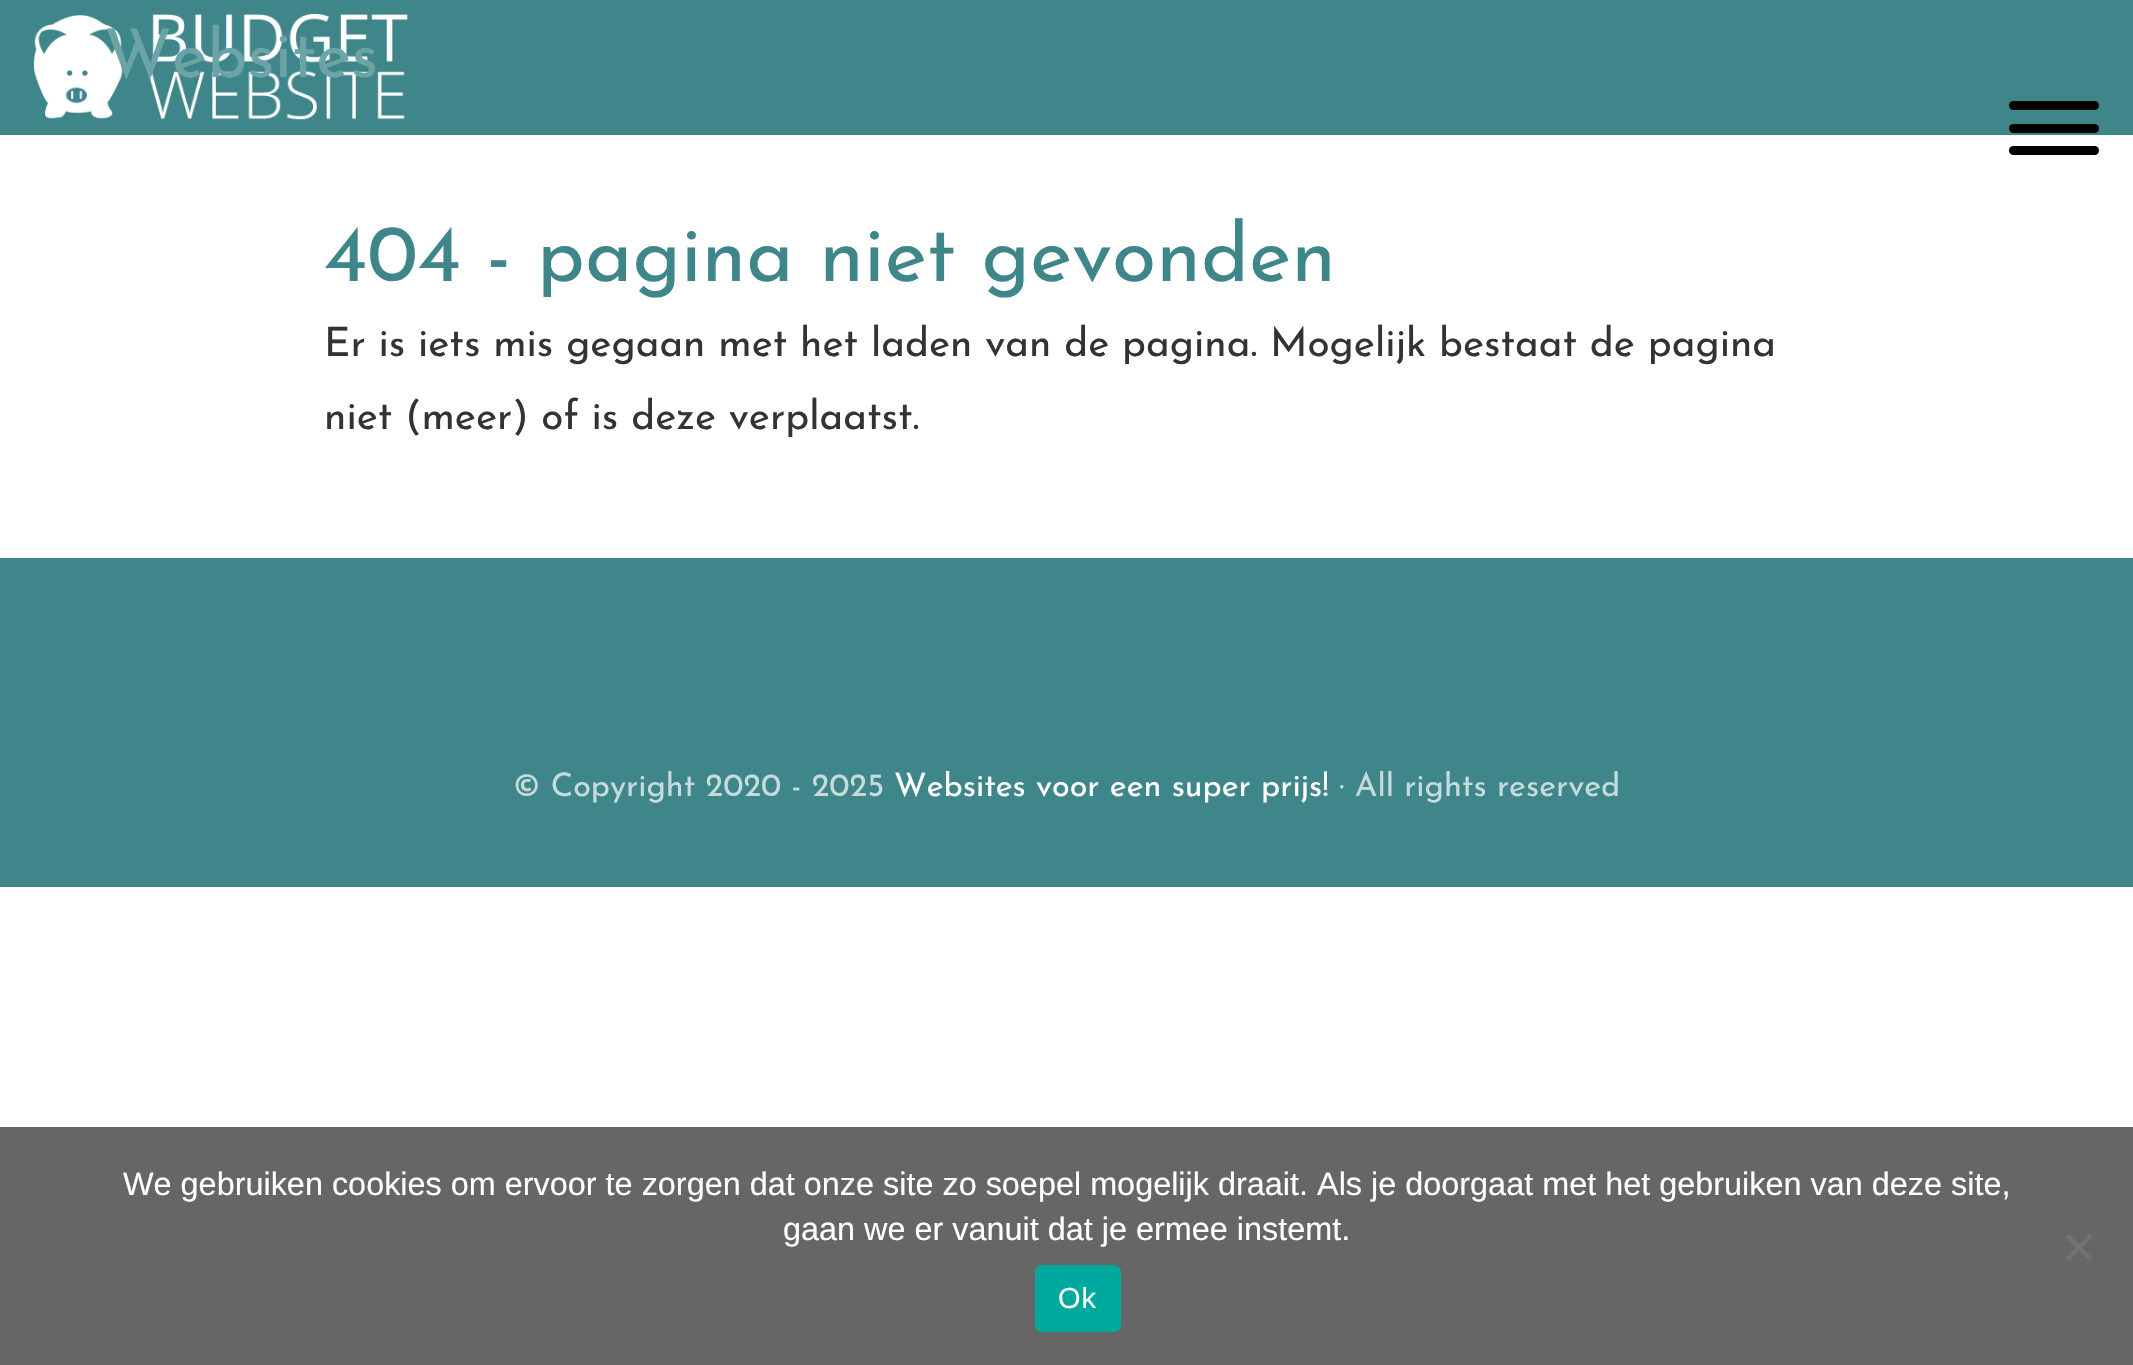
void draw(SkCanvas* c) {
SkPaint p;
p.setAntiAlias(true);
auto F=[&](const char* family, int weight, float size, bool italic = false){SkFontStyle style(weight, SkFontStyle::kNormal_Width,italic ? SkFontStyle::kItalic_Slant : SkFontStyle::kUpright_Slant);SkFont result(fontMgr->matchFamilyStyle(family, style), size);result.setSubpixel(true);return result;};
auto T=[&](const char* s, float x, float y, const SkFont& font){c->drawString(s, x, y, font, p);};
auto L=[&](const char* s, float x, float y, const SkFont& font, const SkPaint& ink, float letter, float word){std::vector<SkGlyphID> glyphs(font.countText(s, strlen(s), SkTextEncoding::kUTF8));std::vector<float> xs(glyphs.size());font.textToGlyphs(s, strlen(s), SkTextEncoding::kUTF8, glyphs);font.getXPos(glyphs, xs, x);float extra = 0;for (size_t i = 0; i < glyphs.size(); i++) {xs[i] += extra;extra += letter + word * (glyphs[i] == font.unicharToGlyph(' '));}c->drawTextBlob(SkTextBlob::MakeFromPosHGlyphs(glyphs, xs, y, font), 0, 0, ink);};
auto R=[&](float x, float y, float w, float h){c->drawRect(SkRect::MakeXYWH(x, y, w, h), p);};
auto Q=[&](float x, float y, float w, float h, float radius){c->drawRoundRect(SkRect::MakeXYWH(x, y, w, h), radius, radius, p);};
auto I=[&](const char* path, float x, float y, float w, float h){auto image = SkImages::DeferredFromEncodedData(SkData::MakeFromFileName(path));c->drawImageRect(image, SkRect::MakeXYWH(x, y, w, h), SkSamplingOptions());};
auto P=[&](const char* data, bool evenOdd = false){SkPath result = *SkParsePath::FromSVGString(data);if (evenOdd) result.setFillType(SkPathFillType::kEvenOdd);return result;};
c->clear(0xffffffff);
p.setColor(0xff3e868a);
R(0,0,2133,135);
I("1.png",33,14,375,106);
auto f1 = F("Josefin Sans",100,67.5);
p.setColor(0xff6ca3a6);
T("Websites",104,77,f1);
p.setColor(0xff000000);
Q(2009,124,90,9,4.5);
Q(2009,101,90,9,4.5);
Q(2009,146,90,9,4.5);
auto f2 = F("Josefin Sans",100,81);
p.setColor(0xff3e868a);
T("404 - pagina niet gevonden",324,281,f2);
auto f3 = F("Josefin Sans",100,40.5);
p.setColor(0xff333333);
T("Er is iets mis gegaan met het laden van de pagina. Mogelijk bestaat de pagina",324,356,f3);
T("niet (meer) of is deze verplaatst.",324,429,f3);
p.setColor(0xff3e868a);
R(0,558,2133,329);
auto f4 = F("Josefin Sans",100,32.4);
p.setColor(0xffc5dbdc);
T("© Copyright 2020 - 2025",513,796,f4);
p.setColor(0xffffffff);
T("Websites voor een super prijs!",894,796,f4);
p.setColor(0xffc5dbdc);
T("· All rights reserved",1339,796,f4);
p.setColor(0xff666666);
R(0,1127,2133,238);
auto f5 = F("Liberation Sans",400,32.4);
p.setColor(0xffffffff);
T("We gebruiken cookies om ervoor te zorgen dat onze site zo soepel mogelijk draait. Als je doorgaat met het gebruiken van deze site,",123,1195,f5);
T("gaan we er vanuit dat je ermee instemt.",783,1240,f5);
p.setColor(0xff737373);
c->drawPath(P("M2089.5 1234l3 3.5l-24 23.5l-3-3z"),p);
c->drawPath(P("M2065.5 1237.5l3-3.5l24 24l-3 3z"),p);
p.setColor(0xff00a99d);
Q(1035,1265,86,67,7);
auto f6 = F("Liberation Sans",400,29);
p.setColor(0xffffffff);
L("Ok",1058,1308,f6,p,1,0);
}
